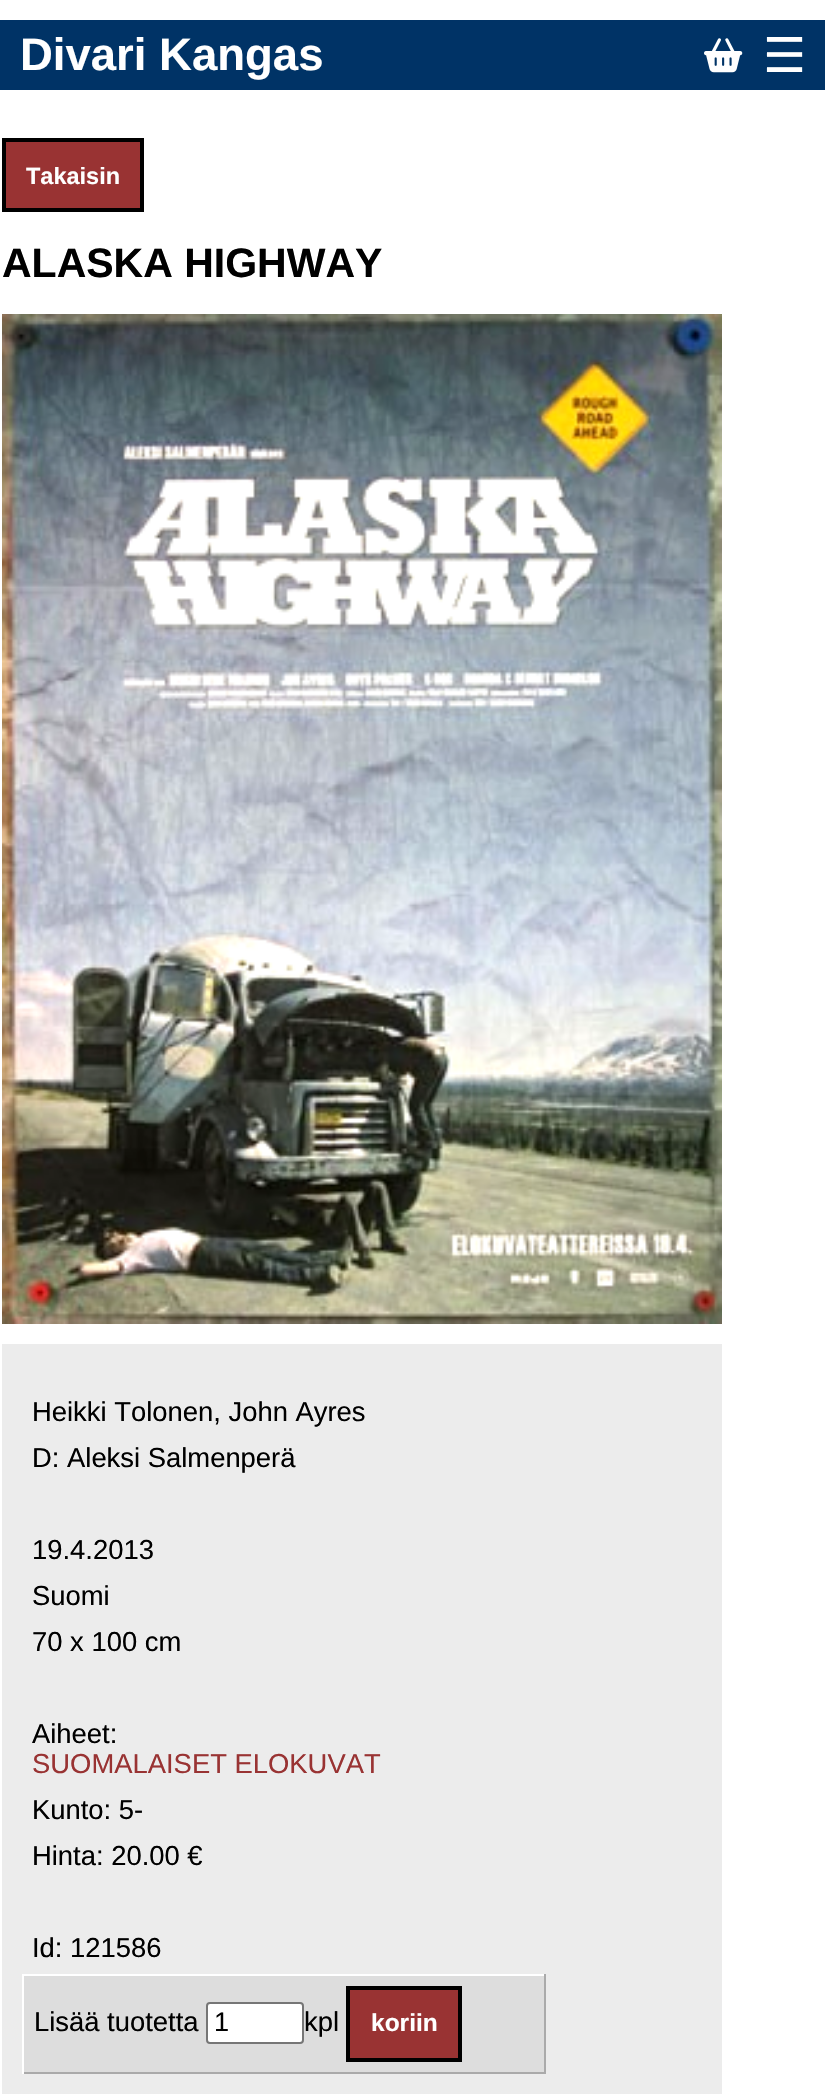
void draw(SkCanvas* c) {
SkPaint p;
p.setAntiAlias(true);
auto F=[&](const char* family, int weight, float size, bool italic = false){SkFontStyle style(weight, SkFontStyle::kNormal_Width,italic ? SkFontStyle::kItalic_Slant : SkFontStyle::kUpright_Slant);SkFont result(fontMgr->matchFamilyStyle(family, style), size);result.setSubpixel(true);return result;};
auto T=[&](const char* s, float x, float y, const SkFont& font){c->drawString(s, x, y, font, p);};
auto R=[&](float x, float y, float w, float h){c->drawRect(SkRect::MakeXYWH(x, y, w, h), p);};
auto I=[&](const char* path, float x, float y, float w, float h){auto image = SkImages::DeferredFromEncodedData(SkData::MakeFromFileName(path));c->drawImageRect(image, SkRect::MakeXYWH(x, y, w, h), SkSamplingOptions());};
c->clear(0xffffffff);
p.setColor(0xff003366);
R(0,20,825,70);
auto f1 = F("Liberation Sans",700,45.5);
p.setColor(0xffffffff);
T("Divari Kangas",20,70,f1);
I("1.png",704,38,39,35);
auto f2 = F("DejaVu Sans",400,48);
T("☰",763,72,f2);
p.setColor(0xff993333);
c->drawRect(SkRect::MakeXYWH(4,140,138,70),p);
p.setStroke(true);
p.setStrokeWidth(4);
p.setColor(0xff000000);
c->drawRect(SkRect::MakeXYWH(4,140,138,70),p);
auto f3 = F("Liberation Sans",700,23.5);
p.setStroke(false);
p.setColor(0xffffffff);
T("Takaisin",26,184,f3);
auto f4 = F("Liberation Sans",700,41);
p.setColor(0xff000000);
T("ALASKA HIGHWAY",2,277,f4);
I("2.png",2,314,720,1010);
p.setColor(0xffececec);
R(2,1344,720,750);
auto f5 = F("Liberation Sans",400,27.4);
p.setColor(0xff000000);
T("Heikki Tolonen, John Ayres",32,1421,f5);
T("D: Aleksi Salmenperä",32,1467,f5);
T("19.4.2013",32,1559,f5);
T("Suomi",32,1605,f5);
T("70 x 100 cm",32,1651,f5);
T("Aiheet:",32,1743,f5);
p.setColor(0xff993333);
T("SUOMALAISET ELOKUVAT",32,1773,f5);
p.setColor(0xff000000);
T("Kunto: 5-",32,1819,f5);
T("Hinta: 20.00 €",32,1865,f5);
T("Id: 121586",32,1957,f5);
p.setColor(0xffdddddd);
R(24,1976,520,96);
p.setColor(0xffffffff);
R(22,1974,524,2);
p.setColor(0xffaaaaaa);
R(544,1974,2,100);
R(22,2072,524,2);
p.setColor(0xffffffff);
R(22,1974,2,100);
p.setColor(0xff000000);
T("Lisää tuotetta",34,2031,f5);
p.setColor(0xffffffff);
c->drawRoundRect(SkRect::MakeXYWH(207,2003,96,40),3,3,p);
p.setStroke(true);
p.setStrokeWidth(2);
p.setColor(0xff767676);
c->drawRoundRect(SkRect::MakeXYWH(207,2003,96,40),3,3,p);
auto f6 = F("Liberation Sans",400,27);
p.setStroke(false);
p.setColor(0xff000000);
T("1",214,2031,f6);
T("kpl",304,2031,f5);
p.setColor(0xff993333);
c->drawRect(SkRect::MakeXYWH(348,1988,112,72),p);
p.setStroke(true);
p.setStrokeWidth(4);
p.setColor(0xff000000);
c->drawRect(SkRect::MakeXYWH(348,1988,112,72),p);
auto f7 = F("Liberation Sans",700,24.5);
p.setStroke(false);
p.setColor(0xffffffff);
T("koriin",371,2031,f7);
}
